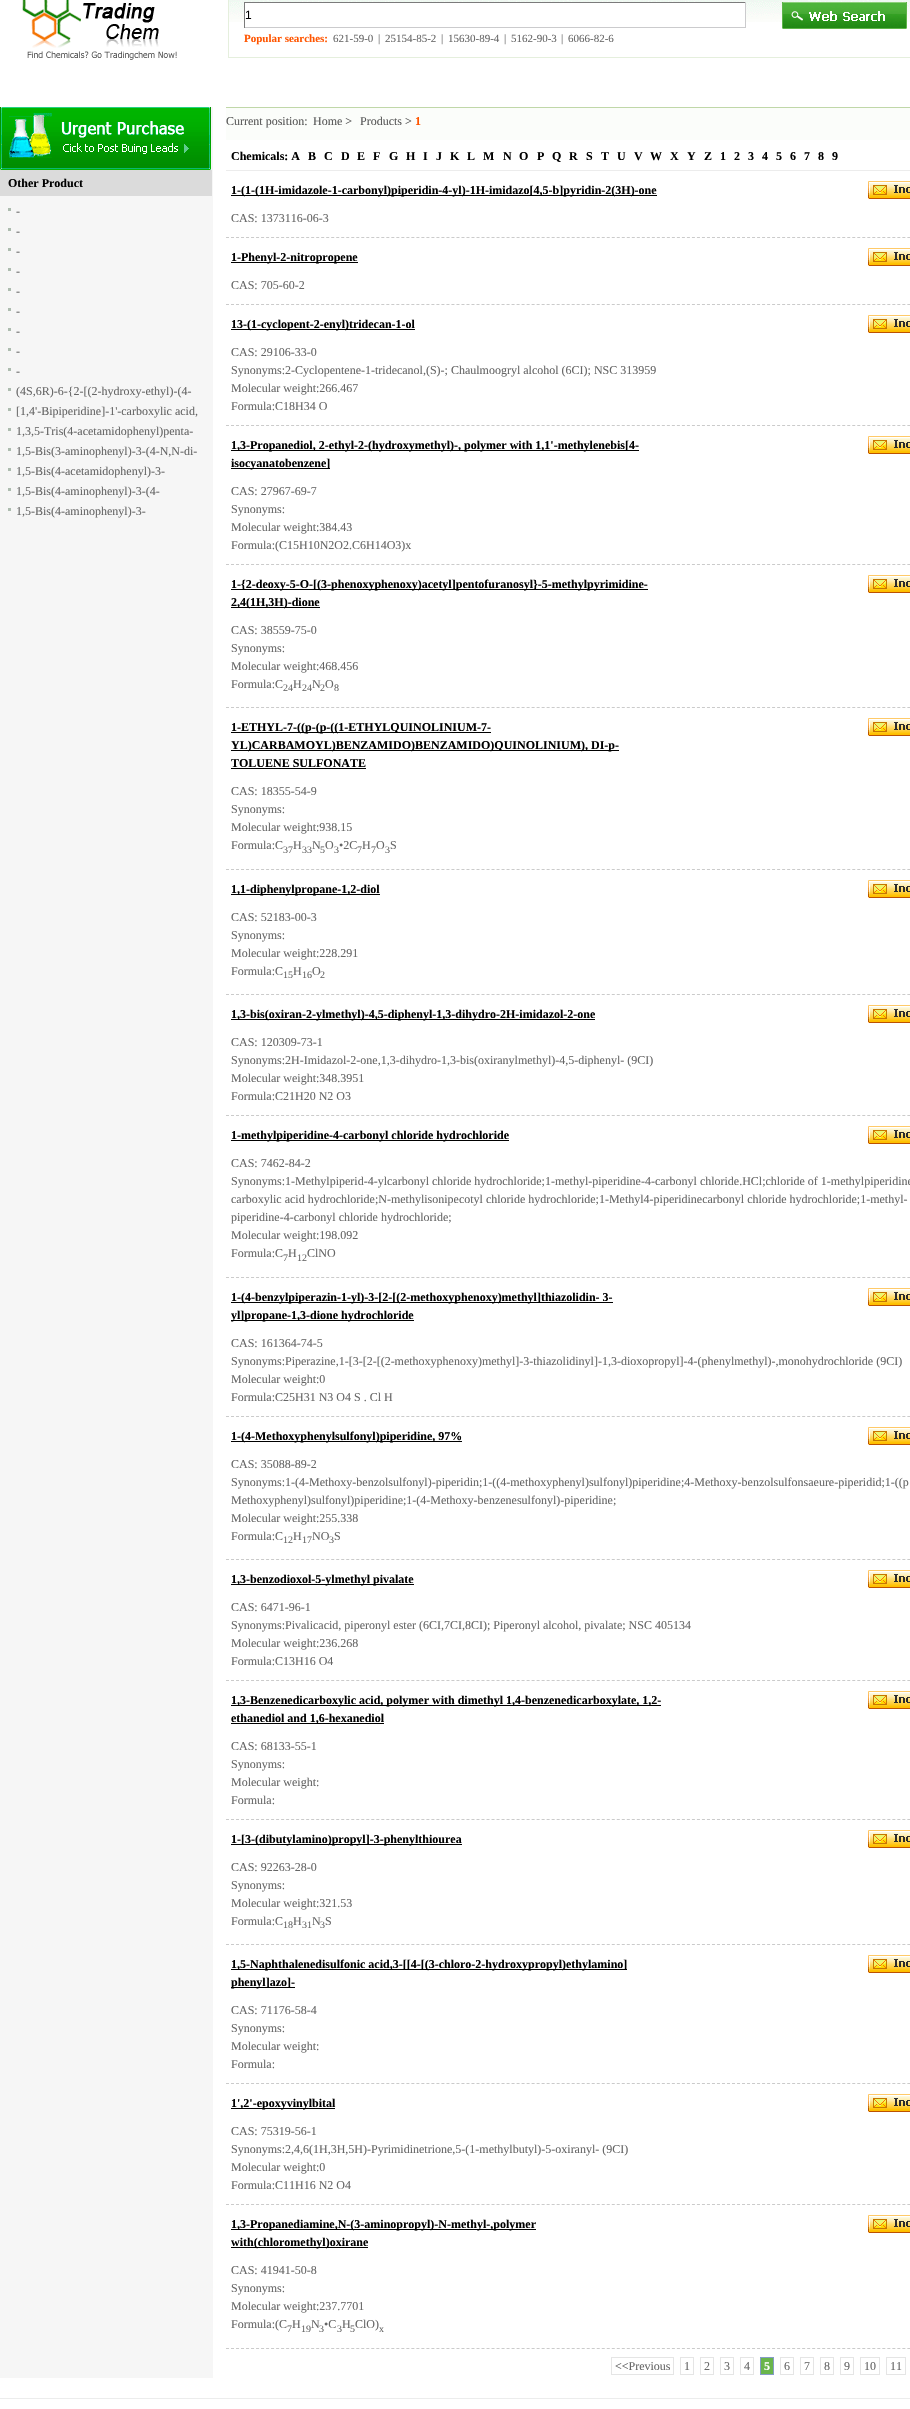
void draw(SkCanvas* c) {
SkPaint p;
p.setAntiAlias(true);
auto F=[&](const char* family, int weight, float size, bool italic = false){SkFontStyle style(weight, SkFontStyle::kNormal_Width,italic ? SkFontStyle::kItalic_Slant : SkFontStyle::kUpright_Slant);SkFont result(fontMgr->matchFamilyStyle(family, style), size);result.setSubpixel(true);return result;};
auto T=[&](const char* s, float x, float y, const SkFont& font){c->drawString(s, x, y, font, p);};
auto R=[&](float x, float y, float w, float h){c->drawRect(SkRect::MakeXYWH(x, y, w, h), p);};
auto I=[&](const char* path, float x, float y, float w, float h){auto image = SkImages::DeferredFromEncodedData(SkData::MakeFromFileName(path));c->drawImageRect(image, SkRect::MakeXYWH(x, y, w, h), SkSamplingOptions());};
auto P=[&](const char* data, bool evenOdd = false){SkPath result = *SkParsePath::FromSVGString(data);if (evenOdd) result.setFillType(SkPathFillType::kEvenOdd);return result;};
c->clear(0xffffffff);
I("1.png",22,0,155,60);
I("2.png",229,0,681,22);
p.setStroke(true);
p.setStrokeWidth(1);
p.setColor(0xffe5efdd);
c->drawRect(SkRect::MakeXYWH(228.5,-.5,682,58),p);
p.setStroke(false);
p.setColor(0xffffffff);
R(245,3,500,19);
p.setColor(0xff7b7b7b);
R(244,2,502,1);
p.setColor(0xffcbcbcd);
R(745,2,1,26);
R(244,27,502,1);
p.setColor(0xff7b7b7b);
R(244,2,1,26);
auto f1 = F("Liberation Sans",400,12);
p.setColor(0xff000000);
T("1",245,19,f1);
I("3.png",782,2,125,27);
auto f2 = F("Liberation Serif",700,11);
p.setColor(0xffff5500);
T("Popular searches:",244,42,f2);
auto f3 = F("Liberation Serif",400,11);
p.setColor(0xff666666);
T("621-59-0",333,42,f3);
T("|",378,42,f3);
T("25154-85-2",385,42,f3);
T("|",441,42,f3);
T("15630-89-4",448,42,f3);
T("|",504,42,f3);
T("5162-90-3",511,42,f3);
T("|",561,42,f3);
T("6066-82-6",568,42,f3);
p.setColor(0xfff6f6f6);
R(0,107,213,2271);
I("4.png",0,107,211,63);
p.setColor(0xffdbdbdb);
R(0,170,212,26);
auto f4 = F("Liberation Serif",700,12);
p.setColor(0xff000000);
T("Other Product",8,187,f4);
p.setColor(0xffadbcaf);
R(8,208,3,3);
auto f5 = F("Liberation Serif",400,12);
p.setColor(0xff666666);
T("-",16,215,f5);
p.setColor(0xffadbcaf);
R(8,228,3,3);
p.setColor(0xff666666);
T("-",16,235,f5);
p.setColor(0xffadbcaf);
R(8,248,3,3);
p.setColor(0xff666666);
T("-",16,255,f5);
p.setColor(0xffadbcaf);
R(8,268,3,3);
p.setColor(0xff666666);
T("-",16,275,f5);
p.setColor(0xffadbcaf);
R(8,288,3,3);
p.setColor(0xff666666);
T("-",16,295,f5);
p.setColor(0xffadbcaf);
R(8,308,3,3);
p.setColor(0xff666666);
T("-",16,315,f5);
p.setColor(0xffadbcaf);
R(8,328,3,3);
p.setColor(0xff666666);
T("-",16,335,f5);
p.setColor(0xffadbcaf);
R(8,348,3,3);
p.setColor(0xff666666);
T("-",16,355,f5);
p.setColor(0xffadbcaf);
R(8,368,3,3);
p.setColor(0xff666666);
T("-",16,375,f5);
p.setColor(0xffadbcaf);
R(8,388,3,3);
p.setColor(0xff666666);
T("(4S,6R)-6-{2-[(2-hydroxy-ethyl)-(4-",16,395,f5);
p.setColor(0xffadbcaf);
R(8,408,3,3);
p.setColor(0xff666666);
T("[1,4'-Bipiperidine]-1'-carboxylic acid,",16,415,f5);
p.setColor(0xffadbcaf);
R(8,428,3,3);
p.setColor(0xff666666);
T("1,3,5-Tris(4-acetamidophenyl)penta-",16,435,f5);
p.setColor(0xffadbcaf);
R(8,448,3,3);
p.setColor(0xff666666);
T("1,5-Bis(3-aminophenyl)-3-(4-N,N-di-",16,455,f5);
p.setColor(0xffadbcaf);
R(8,468,3,3);
p.setColor(0xff666666);
T("1,5-Bis(4-acetamidophenyl)-3-",16,475,f5);
p.setColor(0xffadbcaf);
R(8,488,3,3);
p.setColor(0xff666666);
T("1,5-Bis(4-aminophenyl)-3-(4-",16,495,f5);
p.setColor(0xffadbcaf);
R(8,508,3,3);
p.setColor(0xff666666);
T("1,5-Bis(4-aminophenyl)-3-",16,515,f5);
p.setColor(0xfffbfdfa);
R(226,108,684,32);
p.setColor(0xffc0d7a8);
R(226,107,684,1);
p.setColor(0xff585858);
T("Current position:",226,125,f5);
T("Home >",313,125,f5);
T("Products >",360,125,f5);
p.setColor(0xffff5500);
T("1",415,125,f4);
p.setColor(0xffececec);
R(226,170,684,1);
p.setColor(0xff000000);
T("Chemicals: A",231,160,f4);
T("B",308,160,f4);
T("C",324,160,f4);
T("D",341,160,f4);
T("E",357,160,f4);
T("F",373,160,f4);
T("G",389,160,f4);
T("H",406,160,f4);
T("I",423,160,f4);
T("J",436,160,f4);
T("K",450,160,f4);
T("L",467,160,f4);
T("M",483,160,f4);
T("N",503,160,f4);
T("O",519,160,f4);
T("P",537,160,f4);
T("Q",552,160,f4);
T("R",569,160,f4);
T("S",586,160,f4);
T("T",601,160,f4);
T("U",617,160,f4);
T("V",634,160,f4);
T("W",650,160,f4);
T("X",670,160,f4);
T("Y",687,160,f4);
T("Z",704,160,f4);
T("1",720,160,f4);
T("2",734,160,f4);
T("3",748,160,f4);
T("4",762,160,f4);
T("5",776,160,f4);
T("6",790,160,f4);
T("7",804,160,f4);
T("8",818,160,f4);
T("9",832,160,f4);
p.setStroke(true);
p.setColor(0xffcbcbcb);
p.setPathEffect(SkDashPathEffect::Make({{3,2.01f}}, 0));
c->drawPath(P("M226 237.5h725"),p);
p.setPathEffect(nullptr);
p.setStroke(false);
p.setColor(0xff000000);
R(231,195,426,1);
T("1-(1-(1H-imidazole-1-carbonyl)piperidin-4-yl)-1H-imidazo[4,5-b]pyridin-2(3H)-one",231,194,f4);
I("5.png",868,181,42,18);
p.setColor(0xff666666);
T("CAS: 1373116-06-3",231,222,f5);
p.setStroke(true);
p.setColor(0xffcbcbcb);
p.setPathEffect(SkDashPathEffect::Make({{3,2.01f}}, 0));
c->drawPath(P("M226 304.5h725"),p);
p.setPathEffect(nullptr);
p.setStroke(false);
p.setColor(0xff000000);
R(231,262,127,1);
T("1-Phenyl-2-nitropropene",231,261,f4);
I("5.png",868,248,42,18);
p.setColor(0xff666666);
T("CAS: 705-60-2",231,289,f5);
p.setStroke(true);
p.setColor(0xffcbcbcb);
p.setPathEffect(SkDashPathEffect::Make({{3,2.01f}}, 0));
c->drawPath(P("M226 425.5h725"),p);
p.setPathEffect(nullptr);
p.setStroke(false);
p.setColor(0xff000000);
R(231,329,184,1);
T("13-(1-cyclopent-2-enyl)tridecan-1-ol",231,328,f4);
I("5.png",868,315,42,18);
p.setColor(0xff666666);
T("CAS: 29106-33-0",231,356,f5);
T("Synonyms:2-Cyclopentene-1-tridecanol,(S)-; Chaulmoogryl alcohol (6CI); NSC 313959",231,374,f5);
T("Molecular weight:266.467",231,392,f5);
T("Formula:C18H34 O",231,410,f5);
p.setStroke(true);
p.setColor(0xffcbcbcb);
p.setPathEffect(SkDashPathEffect::Make({{3,2.01f}}, 0));
c->drawPath(P("M226 564.5h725"),p);
p.setPathEffect(nullptr);
p.setStroke(false);
p.setColor(0xff000000);
R(231,450,408,1);
T("1,3-Propanediol, 2-ethyl-2-(hydroxymethyl)-, polymer with 1,1'-methylenebis[4-",231,449,f4);
R(231,468,99,1);
T("isocyanatobenzene]",231,467,f4);
I("5.png",868,436,42,18);
p.setColor(0xff666666);
T("CAS: 27967-69-7",231,495,f5);
T("Synonyms:",231,513,f5);
T("Molecular weight:384.43",231,531,f5);
T("Formula:(C15H10N2O2.C6H14O3)x",231,549,f5);
p.setStroke(true);
p.setColor(0xffcbcbcb);
p.setPathEffect(SkDashPathEffect::Make({{3,2.01f}}, 0));
c->drawPath(P("M226 707.5h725"),p);
p.setPathEffect(nullptr);
p.setStroke(false);
p.setColor(0xff000000);
R(231,589,417,1);
T("1-{2-deoxy-5-O-[(3-phenoxyphenoxy)acetyl]pentofuranosyl}-5-methylpyrimidine-",231,588,f4);
R(231,607,89,1);
T("2,4(1H,3H)-dione",231,606,f4);
I("5.png",868,575,42,18);
p.setColor(0xff666666);
T("CAS: 38559-75-0",231,634,f5);
T("Synonyms:",231,652,f5);
T("Molecular weight:468.456",231,670,f5);
T("Formula:C",231,688,f5);
auto f6 = F("Liberation Serif",400,10);
T("24",283,691,f6);
T("H",293,688,f5);
T("24",302,691,f6);
T("N",312,688,f5);
T("2",320,691,f6);
T("O",325,688,f5);
T("8",334,691,f6);
p.setStroke(true);
p.setColor(0xffcbcbcb);
p.setPathEffect(SkDashPathEffect::Make({{3,2.01f}}, 0));
c->drawPath(P("M226 869.5h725"),p);
p.setPathEffect(nullptr);
p.setStroke(false);
p.setColor(0xff000000);
R(231,732,260,1);
T("1-ETHYL-7-((p-(p-((1-ETHYLQUINOLINIUM-7-",231,731,f4);
R(231,750,388,1);
T("YL)CARBAMOYL)BENZAMIDO)BENZAMIDO)QUINOLINIUM), DI-p-",231,749,f4);
T("TOLUENE SULFONATE",231,767,f4);
R(231,768,135,1);
I("5.png",868,718,42,18);
p.setColor(0xff666666);
T("CAS: 18355-54-9",231,795,f5);
T("Synonyms:",231,813,f5);
T("Molecular weight:938.15",231,831,f5);
T("Formula:C",231,849,f5);
T("37",283,853,f6);
T("H",293,849,f5);
T("33",302,853,f6);
T("N",312,849,f5);
T("5",320,853,f6);
T("O",325,849,f5);
T("3",334,853,f6);
T("•2C",339,849,f5);
T("7",357,853,f6);
T("H",362,849,f5);
T("7",371,853,f6);
T("O",376,849,f5);
T("3",385,853,f6);
T("S",390,849,f5);
p.setStroke(true);
p.setColor(0xffcbcbcb);
p.setPathEffect(SkDashPathEffect::Make({{3,2.01f}}, 0));
c->drawPath(P("M226 994.5h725"),p);
p.setPathEffect(nullptr);
p.setStroke(false);
p.setColor(0xff000000);
R(231,894,149,1);
T("1,1-diphenylpropane-1,2-diol",231,893,f4);
I("5.png",868,880,42,18);
p.setColor(0xff666666);
T("CAS: 52183-00-3",231,921,f5);
T("Synonyms:",231,939,f5);
T("Molecular weight:228.291",231,957,f5);
T("Formula:C",231,975,f5);
T("15",283,978,f6);
T("H",293,975,f5);
T("16",302,978,f6);
T("O",312,975,f5);
T("2",320,978,f6);
p.setStroke(true);
p.setColor(0xffcbcbcb);
p.setPathEffect(SkDashPathEffect::Make({{3,2.01f}}, 0));
c->drawPath(P("M226 1115.5h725"),p);
p.setPathEffect(nullptr);
p.setStroke(false);
p.setColor(0xff000000);
R(231,1019,364,1);
T("1,3-bis(oxiran-2-ylmethyl)-4,5-diphenyl-1,3-dihydro-2H-imidazol-2-one",231,1018,f4);
I("5.png",868,1005,42,18);
p.setColor(0xff666666);
T("CAS: 120309-73-1",231,1046,f5);
T("Synonyms:2H-Imidazol-2-one,1,3-dihydro-1,3-bis(oxiranylmethyl)-4,5-diphenyl- (9CI)",231,1064,f5);
T("Molecular weight:348.3951",231,1082,f5);
T("Formula:C21H20 N2 O3",231,1100,f5);
p.setStroke(true);
p.setColor(0xffcbcbcb);
p.setPathEffect(SkDashPathEffect::Make({{3,2.01f}}, 0));
c->drawPath(P("M226 1277.5h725"),p);
p.setPathEffect(nullptr);
p.setStroke(false);
p.setColor(0xff000000);
R(231,1140,278,1);
T("1-methylpiperidine-4-carbonyl chloride hydrochloride",231,1139,f4);
I("5.png",868,1126,42,18);
p.setColor(0xff666666);
T("CAS: 7462-84-2",231,1167,f5);
T("Synonyms:1-Methylpiperid-4-ylcarbonyl chloride hydrochloride;1-methyl-piperidine-4-carbonyl chloride.HCl;chloride of 1-methylpiperidine",231,1185,f5);
T("carboxylic acid hydrochloride;N-methylisonipecotyl chloride hydrochloride;1-Methyl4-piperidinecarbonyl chloride hydrochloride;1-methyl-",231,1203,f5);
T("piperidine-4-carbonyl chloride hydrochloride;",231,1221,f5);
T("Molecular weight:198.092",231,1239,f5);
T("Formula:C",231,1257,f5);
T("7",283,1261,f6);
T("H",288,1257,f5);
T("12",297,1261,f6);
T("ClNO",307,1257,f5);
p.setStroke(true);
p.setColor(0xffcbcbcb);
p.setPathEffect(SkDashPathEffect::Make({{3,2.01f}}, 0));
c->drawPath(P("M226 1416.5h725"),p);
p.setPathEffect(nullptr);
p.setStroke(false);
p.setColor(0xff000000);
R(231,1302,382,1);
T("1-(4-benzylpiperazin-1-yl)-3-[2-[(2-methoxyphenoxy)methyl]thiazolidin- 3-",231,1301,f4);
R(231,1320,183,1);
T("yl]propane-1,3-dione hydrochloride",231,1319,f4);
I("5.png",868,1288,42,18);
p.setColor(0xff666666);
T("CAS: 161364-74-5",231,1347,f5);
T("Synonyms:Piperazine,1-[3-[2-[(2-methoxyphenoxy)methyl]-3-thiazolidinyl]-1,3-dioxopropyl]-4-(phenylmethyl)-,monohydrochloride (9CI)",231,1365,f5);
T("Molecular weight:0",231,1383,f5);
T("Formula:C25H31 N3 O4 S . Cl H",231,1401,f5);
p.setStroke(true);
p.setColor(0xffcbcbcb);
p.setPathEffect(SkDashPathEffect::Make({{3,2.01f}}, 0));
c->drawPath(P("M226 1559.5h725"),p);
p.setPathEffect(nullptr);
p.setStroke(false);
p.setColor(0xff000000);
R(231,1441,231,1);
T("1-(4-Methoxyphenylsulfonyl)piperidine, 97%",231,1440,f4);
I("5.png",868,1427,42,18);
p.setColor(0xff666666);
T("CAS: 35088-89-2",231,1468,f5);
T("Synonyms:1-(4-Methoxy-benzolsulfonyl)-piperidin;1-((4-methoxyphenyl)sulfonyl)piperidine;4-Methoxy-benzolsulfonsaeure-piperidid;1-((p",231,1486,f5);
T("Methoxyphenyl)sulfonyl)piperidine;1-(4-Methoxy-benzenesulfonyl)-piperidine;",231,1504,f5);
T("Molecular weight:255.338",231,1522,f5);
T("Formula:C",231,1540,f5);
T("12",283,1543,f6);
T("H",293,1540,f5);
T("17",302,1543,f6);
T("NO",312,1540,f5);
T("3",329,1543,f6);
T("S",334,1540,f5);
p.setStroke(true);
p.setColor(0xffcbcbcb);
p.setPathEffect(SkDashPathEffect::Make({{3,2.01f}}, 0));
c->drawPath(P("M226 1680.5h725"),p);
p.setPathEffect(nullptr);
p.setStroke(false);
p.setColor(0xff000000);
R(231,1584,183,1);
T("1,3-benzodioxol-5-ylmethyl pivalate",231,1583,f4);
I("5.png",868,1570,42,18);
p.setColor(0xff666666);
T("CAS: 6471-96-1",231,1611,f5);
T("Synonyms:Pivalicacid, piperonyl ester (6CI,7CI,8CI); Piperonyl alcohol, pivalate; NSC 405134",231,1629,f5);
T("Molecular weight:236.268",231,1647,f5);
T("Formula:C13H16 O4",231,1665,f5);
p.setStroke(true);
p.setColor(0xffcbcbcb);
p.setPathEffect(SkDashPathEffect::Make({{3,2.01f}}, 0));
c->drawPath(P("M226 1819.5h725"),p);
p.setPathEffect(nullptr);
p.setStroke(false);
p.setColor(0xff000000);
R(231,1705,430,1);
T("1,3-Benzenedicarboxylic acid, polymer with dimethyl 1,4-benzenedicarboxylate, 1,2-",231,1704,f4);
R(231,1723,153,1);
T("ethanediol and 1,6-hexanediol",231,1722,f4);
I("5.png",868,1691,42,18);
p.setColor(0xff666666);
T("CAS: 68133-55-1",231,1750,f5);
T("Synonyms:",231,1768,f5);
T("Molecular weight:",231,1786,f5);
T("Formula:",231,1804,f5);
p.setStroke(true);
p.setColor(0xffcbcbcb);
p.setPathEffect(SkDashPathEffect::Make({{3,2.01f}}, 0));
c->drawPath(P("M226 1944.5h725"),p);
p.setPathEffect(nullptr);
p.setStroke(false);
p.setColor(0xff000000);
R(231,1844,231,1);
T("1-[3-(dibutylamino)propyl]-3-phenylthiourea",231,1843,f4);
I("5.png",868,1830,42,18);
p.setColor(0xff666666);
T("CAS: 92263-28-0",231,1871,f5);
T("Synonyms:",231,1889,f5);
T("Molecular weight:321.53",231,1907,f5);
T("Formula:C",231,1925,f5);
T("18",283,1928,f6);
T("H",293,1925,f5);
T("31",302,1928,f6);
T("N",312,1925,f5);
T("3",320,1928,f6);
T("S",325,1925,f5);
p.setStroke(true);
p.setColor(0xffcbcbcb);
p.setPathEffect(SkDashPathEffect::Make({{3,2.01f}}, 0));
c->drawPath(P("M226 2083.5h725"),p);
p.setPathEffect(nullptr);
p.setStroke(false);
p.setColor(0xff000000);
R(231,1969,396,1);
T("1,5-Naphthalenedisulfonic acid,3-[[4-[(3-chloro-2-hydroxypropyl)ethylamino]",231,1968,f4);
R(231,1987,64,1);
T("phenyl]azo]-",231,1986,f4);
I("5.png",868,1955,42,18);
p.setColor(0xff666666);
T("CAS: 71176-58-4",231,2014,f5);
T("Synonyms:",231,2032,f5);
T("Molecular weight:",231,2050,f5);
T("Formula:",231,2068,f5);
p.setStroke(true);
p.setColor(0xffcbcbcb);
p.setPathEffect(SkDashPathEffect::Make({{3,2.01f}}, 0));
c->drawPath(P("M226 2204.5h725"),p);
p.setPathEffect(nullptr);
p.setStroke(false);
p.setColor(0xff000000);
R(231,2108,104,1);
T("1',2'-epoxyvinylbital",231,2107,f4);
I("5.png",868,2094,42,18);
p.setColor(0xff666666);
T("CAS: 75319-56-1",231,2135,f5);
T("Synonyms:2,4,6(1H,3H,5H)-Pyrimidinetrione,5-(1-methylbutyl)-5-oxiranyl- (9CI)",231,2153,f5);
T("Molecular weight:0",231,2171,f5);
T("Formula:C11H16 N2 O4",231,2189,f5);
p.setStroke(true);
p.setColor(0xffcbcbcb);
p.setPathEffect(SkDashPathEffect::Make({{3,2.01f}}, 0));
c->drawPath(P("M226 2348.5h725"),p);
p.setPathEffect(nullptr);
p.setStroke(false);
p.setColor(0xff000000);
R(231,2229,305,1);
T("1,3-Propanediamine,N-(3-aminopropyl)-N-methyl-,polymer",231,2228,f4);
R(231,2247,137,1);
T("with(chloromethyl)oxirane",231,2246,f4);
I("5.png",868,2215,42,18);
p.setColor(0xff666666);
T("CAS: 41941-50-8",231,2274,f5);
T("Synonyms:",231,2292,f5);
T("Molecular weight:237.7701",231,2310,f5);
T("Formula:(C",231,2328,f5);
T("7",287,2332,f6);
T("H",292,2328,f5);
T("19",301,2332,f6);
T("N",311,2328,f5);
T("3",319,2332,f6);
T("•C",324,2328,f5);
T("3",337,2332,f6);
T("H",342,2328,f5);
T("5",350,2332,f6);
T("ClO)",355,2328,f5);
T("x",379,2332,f6);
p.setStroke(true);
p.setColor(0xffe5e5e5);
c->drawRect(SkRect::MakeXYWH(611.5,2357.5,62,17),p);
p.setStroke(false);
p.setColor(0xff666666);
T("<<Previous",615,2370,f5);
p.setStroke(true);
p.setColor(0xffe5e5e5);
c->drawRect(SkRect::MakeXYWH(680.5,2357.5,13,17),p);
p.setStroke(false);
p.setColor(0xff666666);
T("1",684,2370,f5);
p.setStroke(true);
p.setColor(0xffe5e5e5);
c->drawRect(SkRect::MakeXYWH(700.5,2357.5,13,17),p);
p.setStroke(false);
p.setColor(0xff666666);
T("2",704,2370,f5);
p.setStroke(true);
p.setColor(0xffe5e5e5);
c->drawRect(SkRect::MakeXYWH(720.5,2357.5,13,17),p);
p.setStroke(false);
p.setColor(0xff666666);
T("3",724,2370,f5);
p.setStroke(true);
p.setColor(0xffe5e5e5);
c->drawRect(SkRect::MakeXYWH(740.5,2357.5,13,17),p);
p.setStroke(false);
p.setColor(0xff666666);
T("4",744,2370,f5);
p.setColor(0xff69b54b);
c->drawRect(SkRect::MakeXYWH(760.5,2357.5,13,17),p);
p.setStroke(true);
p.setColor(0xff849cc6);
c->drawRect(SkRect::MakeXYWH(760.5,2357.5,13,17),p);
p.setStroke(false);
p.setColor(0xffffffff);
T("5",764,2370,f4);
p.setStroke(true);
p.setColor(0xffe5e5e5);
c->drawRect(SkRect::MakeXYWH(780.5,2357.5,13,17),p);
p.setStroke(false);
p.setColor(0xff666666);
T("6",784,2370,f5);
p.setStroke(true);
p.setColor(0xffe5e5e5);
c->drawRect(SkRect::MakeXYWH(800.5,2357.5,13,17),p);
p.setStroke(false);
p.setColor(0xff666666);
T("7",804,2370,f5);
p.setStroke(true);
p.setColor(0xffe5e5e5);
c->drawRect(SkRect::MakeXYWH(820.5,2357.5,13,17),p);
p.setStroke(false);
p.setColor(0xff666666);
T("8",824,2370,f5);
p.setStroke(true);
p.setColor(0xffe5e5e5);
c->drawRect(SkRect::MakeXYWH(840.5,2357.5,13,17),p);
p.setStroke(false);
p.setColor(0xff666666);
T("9",844,2370,f5);
p.setStroke(true);
p.setColor(0xffe5e5e5);
c->drawRect(SkRect::MakeXYWH(860.5,2357.5,19,17),p);
p.setStroke(false);
p.setColor(0xff666666);
T("10",864,2370,f5);
p.setStroke(true);
p.setColor(0xffe5e5e5);
c->drawRect(SkRect::MakeXYWH(886.5,2357.5,19,17),p);
p.setStroke(false);
p.setColor(0xff666666);
T("11",890,2370,f5);
p.setColor(0xffececec);
R(0,2398,910,1);
}
